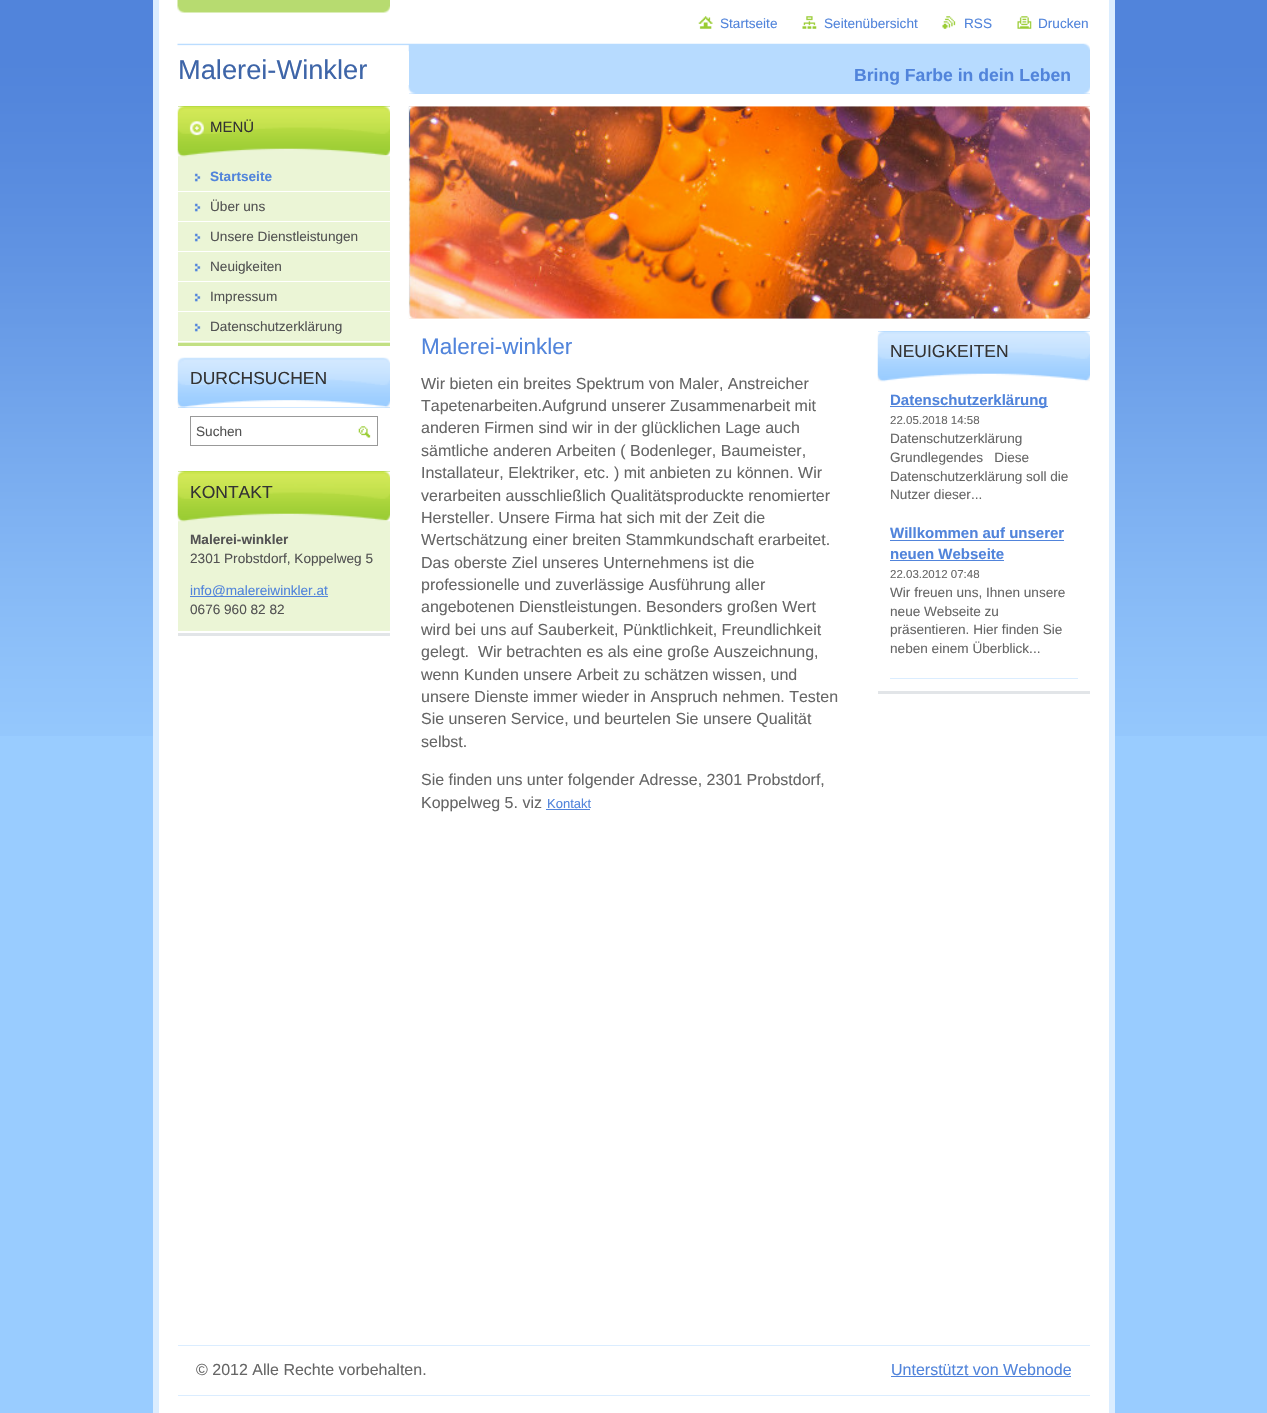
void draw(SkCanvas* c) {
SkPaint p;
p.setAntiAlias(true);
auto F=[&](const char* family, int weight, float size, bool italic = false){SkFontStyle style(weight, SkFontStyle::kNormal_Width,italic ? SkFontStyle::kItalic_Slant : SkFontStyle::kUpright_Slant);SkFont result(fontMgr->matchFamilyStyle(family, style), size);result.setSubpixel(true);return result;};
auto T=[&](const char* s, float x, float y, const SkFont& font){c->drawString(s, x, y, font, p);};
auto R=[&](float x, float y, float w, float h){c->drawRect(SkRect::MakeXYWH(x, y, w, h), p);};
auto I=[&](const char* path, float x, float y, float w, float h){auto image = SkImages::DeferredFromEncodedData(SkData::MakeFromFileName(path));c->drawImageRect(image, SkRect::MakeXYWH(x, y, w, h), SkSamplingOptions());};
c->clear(0xff99ccff);
I("1.png",0,0,1267,736);
p.setColor(0xffffffff);
R(159,0,950,1413);
I("2.png",177,0,213,13);
p.setColor(0xffdbedff);
R(1109,0,6,1413);
R(153,0,6,1413);
I("3.png",698,16,15,13);
auto f1 = F("Liberation Sans",400,13.6);
p.setColor(0xff5184db);
T("Startseite",720,28,f1);
I("4.png",802,16,15,13);
T("Seitenübersicht",824,28,f1);
I("5.png",942,16,14,13);
T("RSS",964,28,f1);
I("6.png",1017,16,15,13);
T("Drucken",1038,28,f1);
I("7.png",177,43,913,9);
auto f2 = F("Liberation Sans",400,27.25);
p.setColor(0xff3e65a8);
T("Malerei-Winkler",178,79,f2);
p.setColor(0xffb7dbff);
R(409,51,681,43);
I("8.png",408,85,682,9);
auto f3 = F("Liberation Sans",700,17.6);
p.setColor(0xff5184db);
T("Bring Farbe in dein Leben",854,81,f3);
p.setColor(0xffc2e084);
R(178,343,212,3);
p.setColor(0xffebf5d6);
R(178,156,212,187);
p.setColor(0xff9fcf36);
R(178,106,212,43);
I("9.png",177,106,213,43);
I("10.png",177,148,213,9);
auto f4 = F("Liberation Sans",400,15);
p.setColor(0xff333333);
T("MENÜ",210,132,f4);
I("11.png",194,173,7,9);
p.setColor(0xffffffff);
R(178,191,212,1);
auto f5 = F("Liberation Sans",700,13.6);
p.setColor(0xff5184db);
T("Startseite",210,181,f5);
I("11.png",194,203,7,9);
p.setColor(0xffffffff);
R(178,221,212,1);
p.setColor(0xff535353);
T("Über uns",210,211,f1);
I("11.png",194,233,7,9);
p.setColor(0xffffffff);
R(178,251,212,1);
p.setColor(0xff535353);
T("Unsere Dienstleistungen",210,241,f1);
I("11.png",194,263,7,9);
p.setColor(0xffffffff);
R(178,281,212,1);
p.setColor(0xff535353);
T("Neuigkeiten",210,271,f1);
I("11.png",194,293,7,9);
p.setColor(0xffffffff);
R(178,311,212,1);
p.setColor(0xff535353);
T("Impressum",210,301,f1);
I("11.png",194,323,7,9);
p.setColor(0xffffffff);
R(178,341,212,1);
p.setColor(0xff535353);
T("Datenschutzerklärung",210,331,f1);
p.setColor(0xff9fcfff);
R(178,399,212,9);
I("12.png",177,357,213,43);
I("13.png",177,400,213,8);
auto f6 = F("Liberation Sans",400,17.5);
p.setColor(0xff333333);
T("DURCHSUCHEN",190,384,f6);
p.setStroke(true);
p.setStrokeWidth(1);
p.setColor(0xff999999);
c->drawRect(SkRect::MakeXYWH(190.5,416.5,187,29),p);
p.setStroke(false);
p.setColor(0xff535353);
T("Suchen",196,436,f1);
I("14.png",358,426,13,12);
p.setColor(0xffe2e5e8);
R(178,633,212,3);
p.setColor(0xffebf5d6);
R(178,521,212,110);
p.setColor(0xff9fcf36);
R(178,471,212,43);
I("15.png",177,471,213,43);
I("16.png",177,513,213,9);
p.setColor(0xff333333);
T("KONTAKT",190,498,f6);
p.setColor(0xff535353);
T("Malerei-winkler",190,544,f5);
T("2301 Probstdorf, Koppelweg 5",190,563,f1);
p.setColor(0xff5184db);
R(190,596,138,1);
T("info@malereiwinkler.at",190,595,f1);
p.setColor(0xff535353);
T("0676 960 82 82",190,614,f1);
I("17.png",408,106,682,213);
I("18.png",409,106,681,213);
auto f7 = F("Liberation Sans",400,22.5);
p.setColor(0xff5184db);
T("Malerei-winkler",421,354,f7);
auto f8 = F("Liberation Sans",400,16);
p.setColor(0xff666666);
T("Wir bieten ein breites Spektrum von Maler, Anstreicher",421,389,f8);
T("Tapetenarbeiten.Aufgrund unserer Zusammenarbeit mit",421,411,f8);
T("anderen Firmen sind wir in der glücklichen Lage auch",421,433,f8);
T("sämtliche anderen Arbeiten ( Bodenleger, Baumeister,",421,456,f8);
T("Installateur, Elektriker, etc. ) mit anbieten zu können. Wir",421,478,f8);
T("verarbeiten ausschließlich Qualitätsproduckte renomierter",421,501,f8);
T("Hersteller. Unsere Firma hat sich mit der Zeit die",421,523,f8);
T("Wertschätzung einer breiten Stammkundschaft erarbeitet.",421,545,f8);
T("Das oberste Ziel unseres Unternehmens ist die",421,568,f8);
T("professionelle und zuverlässige Ausführung aller",421,590,f8);
T("angebotenen Dienstleistungen. Besonders großen Wert",421,612,f8);
T("wird bei uns auf Sauberkeit, Pünktlichkeit, Freundlichkeit",421,635,f8);
T("gelegt.  Wir betrachten es als eine große Auszeichnung,",421,657,f8);
T("wenn Kunden unsere Arbeit zu schätzen wissen, und",421,680,f8);
T("unsere Dienste immer wieder in Anspruch nehmen. Testen",421,702,f8);
T("Sie unseren Service, und beurtelen Sie unsere Qualität",421,724,f8);
T("selbst.",421,747,f8);
T("Sie finden uns unter folgender Adresse, 2301 Probstdorf,",421,785,f8);
T("Koppelweg 5. viz",421,808,f8);
auto f9 = F("Liberation Sans",400,13);
p.setColor(0xff5184db);
T("Kontakt",547,808,f9);
R(546,809,44,1);
p.setColor(0xffe2e5e8);
R(878,691,212,3);
p.setColor(0xff9fcfff);
R(878,331,212,43);
I("19.png",877,331,213,43);
I("20.png",877,373,213,9);
p.setColor(0xff333333);
T("NEUIGKEITEN",890,357,f6);
p.setColor(0xff5184db);
R(890,406,158,1);
auto f10 = F("Liberation Sans",700,15);
T("Datenschutzerklärung",890,405,f10);
auto f11 = F("Liberation Sans",400,11.5);
p.setColor(0xff666666);
T("22.05.2018 14:58",890,424,f11);
T("Datenschutzerklärung",890,443,f1);
T("Grundlegendes   Diese",890,462,f1);
T("Datenschutzerklärung soll die",890,481,f1);
T("Nutzer dieser...",890,499,f1);
p.setColor(0xff5184db);
T("Willkommen auf unserer",890,538,f10);
R(890,540,174,1);
T("neuen Webseite",890,559,f10);
R(890,560,114,1);
p.setColor(0xff666666);
T("22.03.2012 07:48",890,578,f11);
T("Wir freuen uns, Ihnen unsere",890,597,f1);
T("neue Webseite zu",890,616,f1);
T("präsentieren. Hier finden Sie",890,634,f1);
T("neben einem Überblick...",890,653,f1);
p.setColor(0xffdbedff);
R(890,678,188,1);
R(178,1345,912,1);
R(178,1395,912,1);
p.setColor(0xff666666);
T("© 2012 Alle Rechte vorbehalten.",196,1375,f8);
p.setColor(0xff5184db);
T("Unterstützt von Webnode",891,1375,f8);
R(891,1376,180,1);
}
